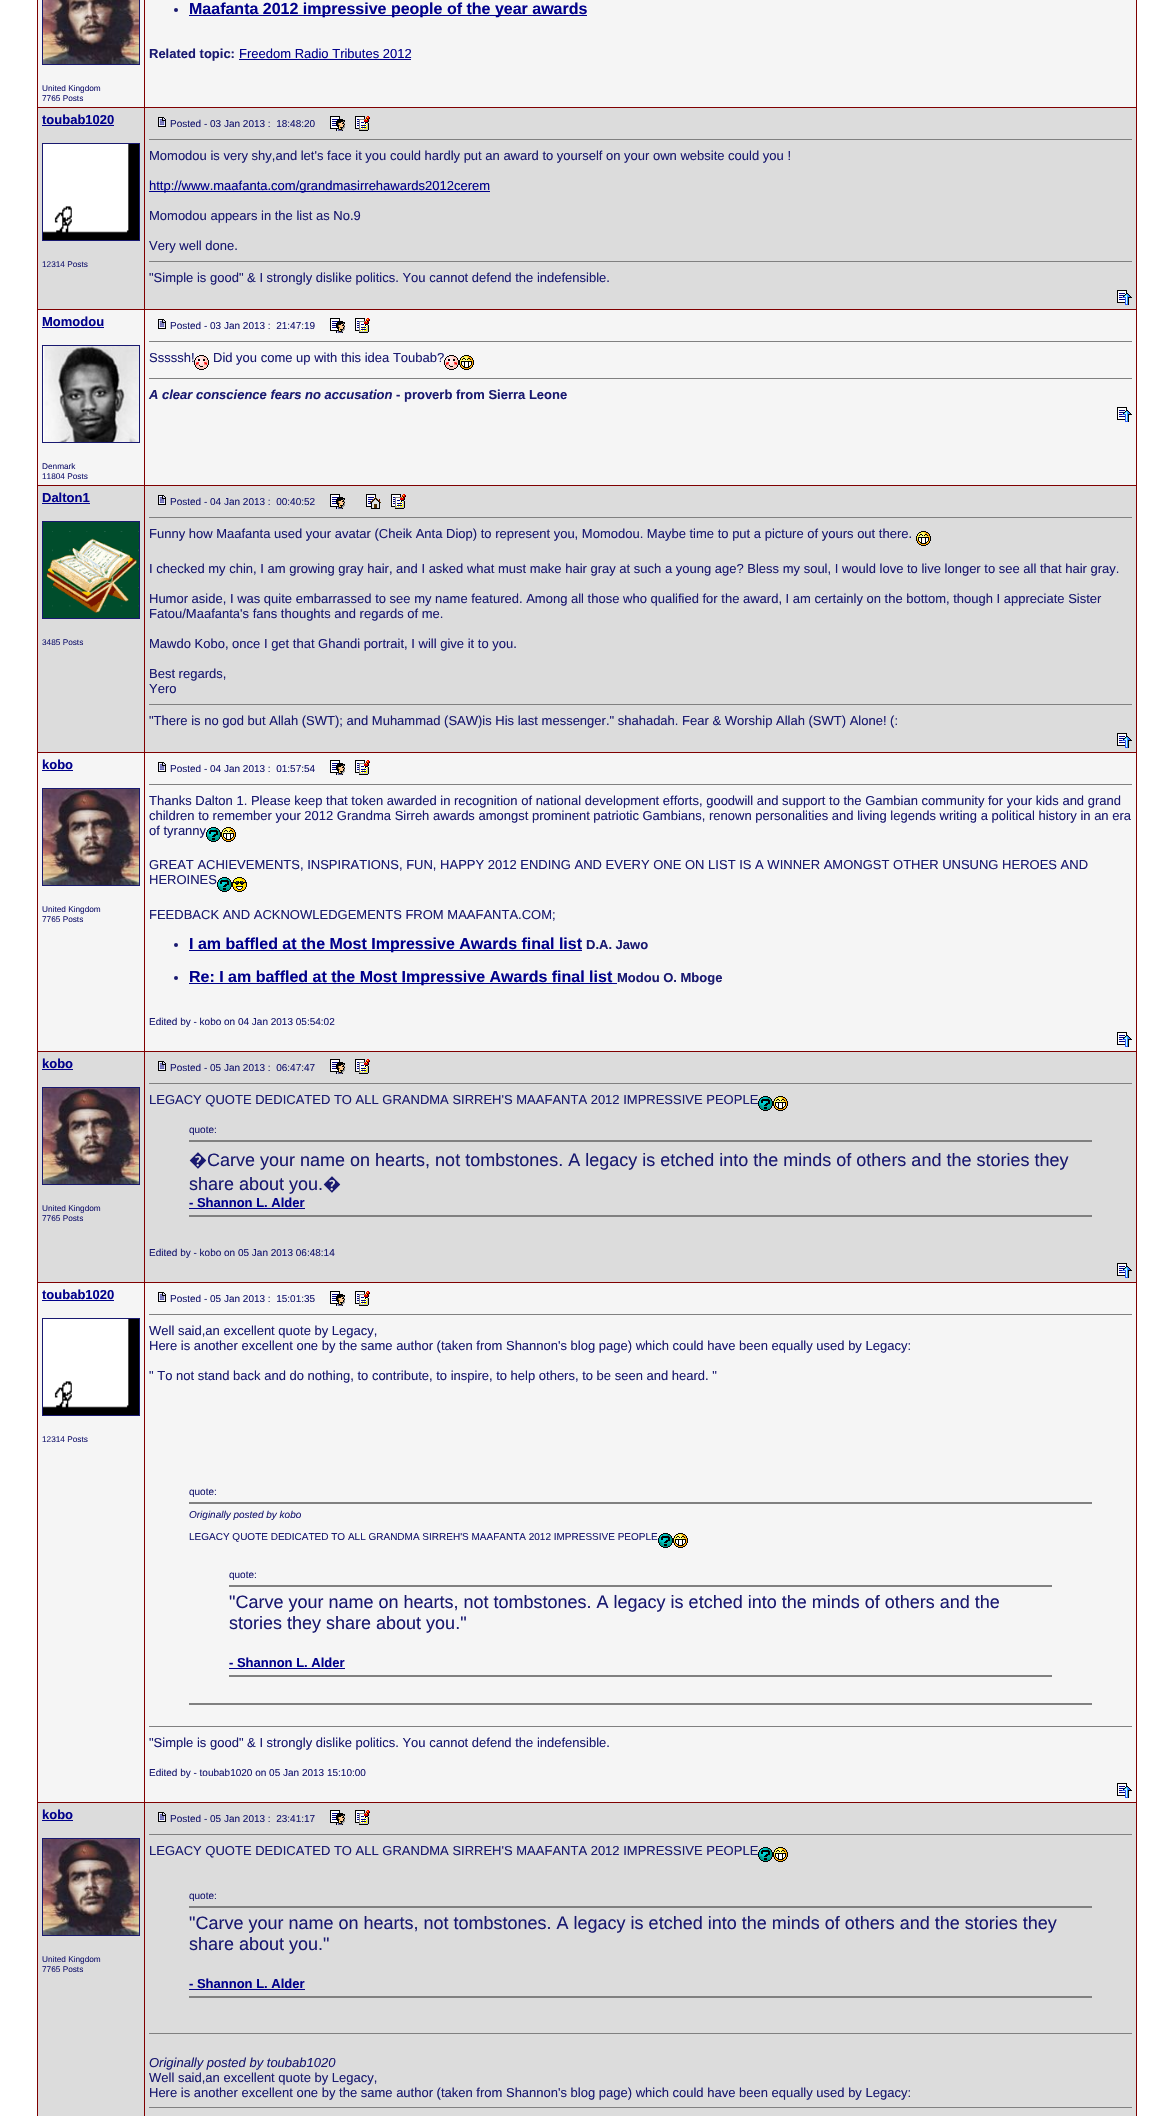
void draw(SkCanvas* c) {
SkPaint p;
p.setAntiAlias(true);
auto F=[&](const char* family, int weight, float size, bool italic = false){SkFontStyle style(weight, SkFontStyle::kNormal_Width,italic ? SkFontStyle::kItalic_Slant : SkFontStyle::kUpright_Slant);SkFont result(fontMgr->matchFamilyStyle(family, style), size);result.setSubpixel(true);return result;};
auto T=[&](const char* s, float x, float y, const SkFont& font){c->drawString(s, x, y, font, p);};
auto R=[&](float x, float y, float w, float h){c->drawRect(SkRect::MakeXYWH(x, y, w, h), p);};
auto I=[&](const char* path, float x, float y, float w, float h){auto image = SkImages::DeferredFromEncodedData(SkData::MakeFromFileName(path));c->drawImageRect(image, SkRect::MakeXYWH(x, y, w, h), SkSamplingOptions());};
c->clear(0xffffffff);
p.setColor(0xff800000);
R(37,0,1100,2116);
p.setColor(0xfff5f5f5);
R(145,0,991,107);
p.setColor(0xff191970);
c->drawCircle(176,10,2,p);
p.setColor(0xff00008b);
R(189,15,398,1);
auto f1 = F("Liberation Sans",700,16);
T("Maafanta 2012 impressive people of the year awards",189,14,f1);
auto f2 = F("Liberation Sans",700,13);
p.setColor(0xff191970);
T("Related topic:",149,58,f2);
auto f3 = F("Liberation Sans",400,13);
p.setColor(0xff00008b);
T("Freedom Radio Tributes 2012",239,58,f3);
R(239,59,172,1);
p.setColor(0xfff5f5f5);
R(38,0,106,107);
p.setStroke(true);
p.setStrokeWidth(1);
p.setColor(0xff191970);
c->drawRect(SkRect::MakeXYWH(42.5,-.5,97,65),p);
I("1.png",43,0,96,64);
auto f4 = F("Liberation Sans",400,8.25);
p.setStroke(false);
T("United Kingdom",42,91,f4);
T("7765 Posts",42,101,f4);
p.setColor(0xffdcdcdc);
R(38,108,106,201);
p.setColor(0xff00008b);
T("toubab1020",42,124,f2);
R(42,125,72,1);
p.setStroke(true);
p.setColor(0xff191970);
c->drawRect(SkRect::MakeXYWH(42.5,143.5,97,97),p);
I("2.png",43,144,96,96);
p.setStroke(false);
T("12314 Posts",42,267,f4);
p.setColor(0xffdcdcdc);
R(145,108,991,201);
I("3.png",158,117,8,10);
auto f5 = F("Liberation Sans",400,10);
p.setColor(0xff191970);
T("Posted - 03 Jan 2013 :  18:48:20",170,127,f5);
I("4.png",330,116,15,15);
I("5.png",355,116,15,15);
p.setColor(0xff808080);
R(149,139,983,1);
p.setColor(0xff191970);
T("Momodou is very shy,and let's face it you could hardly put an award to yourself on your own website could you !",149,160,f3);
p.setColor(0xff00008b);
R(149,191,341,1);
T("http://www.maafanta.com/grandmasirrehawards2012cerem",149,190,f3);
p.setColor(0xff191970);
T("Momodou appears in the list as No.9",149,220,f3);
T("Very well done.",149,250,f3);
p.setColor(0xff808080);
R(149,261,983,1);
p.setColor(0xff191970);
T("\"Simple is good\" & I strongly dislike politics. You cannot defend the indefensible.",149,282,f3);
I("6.png",1117,290,15,15);
p.setColor(0xfff5f5f5);
R(38,310,106,175);
p.setColor(0xff00008b);
T("Momodou",42,326,f2);
R(42,327,62,1);
p.setStroke(true);
p.setColor(0xff191970);
c->drawRect(SkRect::MakeXYWH(42.5,345.5,97,97),p);
I("7.png",43,346,96,96);
p.setStroke(false);
T("Denmark",42,469,f4);
T("11804 Posts",42,479,f4);
p.setColor(0xfff5f5f5);
R(145,310,991,175);
I("8.png",158,319,8,10);
p.setColor(0xff191970);
T("Posted - 03 Jan 2013 :  21:47:19",170,329,f5);
I("9.png",330,318,15,15);
I("10.png",355,318,15,15);
p.setColor(0xff808080);
R(149,341,983,1);
p.setColor(0xff191970);
T("Sssssh!",149,362,f3);
I("11.png",194,355,15,15);
T("Did you come up with this idea Toubab?",213,362,f3);
I("11.png",444,355,15,15);
I("12.png",459,355,15,15);
p.setColor(0xff808080);
R(149,378,983,1);
auto f6 = F("Liberation Sans",700,13,true);
p.setColor(0xff191970);
T("A clear conscience fears no accusation",149,399,f6);
T("- proverb from Sierra Leone",396,399,f2);
I("13.png",1117,407,15,15);
p.setColor(0xffdcdcdc);
R(38,486,106,266);
p.setColor(0xff00008b);
T("Dalton1",42,502,f2);
R(42,503,48,1);
p.setStroke(true);
p.setColor(0xff191970);
c->drawRect(SkRect::MakeXYWH(42.5,521.5,97,97),p);
I("14.png",43,522,96,96);
p.setStroke(false);
T("3485 Posts",42,645,f4);
p.setColor(0xffdcdcdc);
R(145,486,991,266);
I("3.png",158,495,8,10);
p.setColor(0xff191970);
T("Posted - 04 Jan 2013 :  00:40:52",170,505,f5);
I("4.png",330,494,15,15);
I("15.png",366,494,15,15);
I("5.png",391,494,15,15);
p.setColor(0xff808080);
R(149,517,983,1);
p.setColor(0xff191970);
T("Funny how Maafanta used your avatar (Cheik Anta Diop) to represent you, Momodou. Maybe time to put a picture of yours out there.",149,538,f3);
I("16.png",916,531,15,15);
T("I checked my chin, I am growing gray hair, and I asked what must make hair gray at such a young age? Bless my soul, I would love to live longer to see all that hair gray.",149,573,f3);
T("Humor aside, I was quite embarrassed to see my name featured. Among all those who qualified for the award, I am certainly on the bottom, though I appreciate Sister",149,603,f3);
T("Fatou/Maafanta's fans thoughts and regards of me.",149,618,f3);
T("Mawdo Kobo, once I get that Ghandi portrait, I will give it to you.",149,648,f3);
T("Best regards,",149,678,f3);
T("Yero",149,693,f3);
p.setColor(0xff808080);
R(149,704,983,1);
p.setColor(0xff191970);
T("\"There is no god but Allah (SWT); and Muhammad (SAW)is His last messenger.\" shahadah. Fear & Worship Allah (SWT) Alone! (:",149,725,f3);
I("6.png",1117,733,15,15);
p.setColor(0xfff5f5f5);
R(38,753,106,298);
p.setColor(0xff00008b);
T("kobo",42,769,f2);
R(42,770,31,1);
p.setStroke(true);
p.setColor(0xff191970);
c->drawRect(SkRect::MakeXYWH(42.5,788.5,97,97),p);
I("17.png",43,789,96,96);
p.setStroke(false);
T("United Kingdom",42,912,f4);
T("7765 Posts",42,922,f4);
p.setColor(0xfff5f5f5);
R(145,753,991,298);
I("8.png",158,762,8,10);
p.setColor(0xff191970);
T("Posted - 04 Jan 2013 :  01:57:54",170,772,f5);
I("9.png",330,760,15,15);
I("10.png",355,760,15,15);
p.setColor(0xff808080);
R(149,784,983,1);
p.setColor(0xff191970);
T("Thanks Dalton 1. Please keep that token awarded in recognition of national development efforts, goodwill and support to the Gambian community for your kids and grand",149,805,f3);
T("children to remember your 2012 Grandma Sirreh awards amongst prominent patriotic Gambians, renown personalities and living legends writing a political history in an era",149,820,f3);
T("of tyranny",149,835,f3);
I("18.png",206,827,15,15);
I("12.png",221,827,15,15);
T("GREAT ACHIEVEMENTS, INSPIRATIONS, FUN, HAPPY 2012 ENDING AND EVERY ONE ON LIST IS A WINNER AMONGST OTHER UNSUNG HEROES AND",149,869,f3);
T("HEROINES",149,884,f3);
I("18.png",217,877,15,15);
I("19.png",232,877,15,15);
T("FEEDBACK AND ACKNOWLEDGEMENTS FROM MAAFANTA.COM;",149,919,f3);
c->drawCircle(176,945,2,p);
p.setColor(0xff00008b);
R(189,950,393,1);
T("I am baffled at the Most Impressive Awards final list",189,949,f1);
p.setColor(0xff191970);
T("D.A. Jawo",586,949,f2);
c->drawCircle(176,978,2,p);
p.setColor(0xff00008b);
R(189,983,428,1);
T("Re: I am baffled at the Most Impressive Awards final list",189,982,f1);
p.setColor(0xff191970);
T("Modou O. Mboge",617,982,f2);
T("Edited by - kobo on 04 Jan 2013 05:54:02",149,1025,f5);
I("13.png",1117,1032,15,15);
p.setColor(0xffdcdcdc);
R(38,1052,106,230);
p.setColor(0xff00008b);
T("kobo",42,1068,f2);
R(42,1069,31,1);
p.setStroke(true);
p.setColor(0xff191970);
c->drawRect(SkRect::MakeXYWH(42.5,1087.5,97,97),p);
I("17.png",43,1088,96,96);
p.setStroke(false);
T("United Kingdom",42,1211,f4);
T("7765 Posts",42,1221,f4);
p.setColor(0xffdcdcdc);
R(145,1052,991,230);
I("3.png",158,1061,8,10);
p.setColor(0xff191970);
T("Posted - 05 Jan 2013 :  06:47:47",170,1071,f5);
I("4.png",330,1059,15,15);
I("5.png",355,1059,15,15);
p.setColor(0xff808080);
R(149,1083,983,1);
p.setColor(0xff191970);
T("LEGACY QUOTE DEDICATED TO ALL GRANDMA SIRREH'S MAAFANTA 2012 IMPRESSIVE PEOPLE",149,1104,f3);
I("20.png",758,1096,15,15);
I("16.png",773,1096,15,15);
T("quote:",189,1133,f5);
p.setColor(0xff808080);
R(189,1140,903,2);
auto f7 = F("Noto Sans",400,18);
p.setColor(0xff191970);
T("�",189,1166,f7);
auto f8 = F("Liberation Sans",400,18);
T("Carve your name on hearts, not tombstones. A legacy is etched into the minds of others and the stories they",207,1166,f8);
T("share about you.",189,1190,f8);
T("�",323,1190,f7);
p.setColor(0xff00008b);
T("- Shannon L. Alder",189,1207,f2);
R(189,1208,116,1);
p.setColor(0xff808080);
R(189,1215,903,2);
p.setColor(0xff191970);
T("Edited by - kobo on 05 Jan 2013 06:48:14",149,1256,f5);
I("6.png",1117,1263,15,15);
p.setColor(0xfff5f5f5);
R(38,1283,106,519);
p.setColor(0xff00008b);
T("toubab1020",42,1299,f2);
R(42,1300,72,1);
p.setStroke(true);
p.setColor(0xff191970);
c->drawRect(SkRect::MakeXYWH(42.5,1318.5,97,97),p);
I("2.png",43,1319,96,96);
p.setStroke(false);
T("12314 Posts",42,1442,f4);
p.setColor(0xfff5f5f5);
R(145,1283,991,519);
I("8.png",158,1292,8,10);
p.setColor(0xff191970);
T("Posted - 05 Jan 2013 :  15:01:35",170,1302,f5);
I("9.png",330,1291,15,15);
I("10.png",355,1291,15,15);
p.setColor(0xff808080);
R(149,1314,983,1);
p.setColor(0xff191970);
T("Well said,an excellent quote by Legacy,",149,1335,f3);
T("Here is another excellent one by the same author (taken from Shannon's blog page) which could have been equally used by Legacy:",149,1350,f3);
T("\" To not stand back and do nothing, to contribute, to inspire, to help others, to be seen and heard. \"",149,1380,f3);
T("quote:",189,1495,f5);
p.setColor(0xff808080);
R(189,1502,903,2);
auto f9 = F("Liberation Sans",400,10,true);
p.setColor(0xff191970);
T("Originally posted by kobo",189,1518,f9);
T("LEGACY QUOTE DEDICATED TO ALL GRANDMA SIRREH'S MAAFANTA 2012 IMPRESSIVE PEOPLE",189,1540,f5);
I("18.png",658,1533,15,15);
I("12.png",673,1533,15,15);
T("quote:",229,1578,f5);
p.setColor(0xff808080);
R(229,1585,823,2);
p.setColor(0xff191970);
T("\"Carve your name on hearts, not tombstones. A legacy is etched into the minds of others and the",229,1608,f8);
T("stories they share about you.\"",229,1629,f8);
p.setColor(0xff00008b);
T("- Shannon L. Alder",229,1667,f2);
R(229,1668,116,1);
p.setColor(0xff808080);
R(229,1675,823,2);
R(189,1703,903,2);
R(149,1726,983,1);
p.setColor(0xff191970);
T("\"Simple is good\" & I strongly dislike politics. You cannot defend the indefensible.",149,1747,f3);
T("Edited by - toubab1020 on 05 Jan 2013 15:10:00",149,1776,f5);
I("13.png",1117,1783,15,15);
p.setColor(0xffdcdcdc);
R(38,1803,106,313);
p.setColor(0xff00008b);
T("kobo",42,1819,f2);
R(42,1820,31,1);
p.setStroke(true);
p.setColor(0xff191970);
c->drawRect(SkRect::MakeXYWH(42.5,1838.5,97,97),p);
I("17.png",43,1839,96,96);
p.setStroke(false);
T("United Kingdom",42,1962,f4);
T("7765 Posts",42,1972,f4);
p.setColor(0xffdcdcdc);
R(145,1803,991,313);
I("3.png",158,1812,8,10);
p.setColor(0xff191970);
T("Posted - 05 Jan 2013 :  23:41:17",170,1822,f5);
I("4.png",330,1810,15,15);
I("5.png",355,1810,15,15);
p.setColor(0xff808080);
R(149,1834,983,1);
p.setColor(0xff191970);
T("LEGACY QUOTE DEDICATED TO ALL GRANDMA SIRREH'S MAAFANTA 2012 IMPRESSIVE PEOPLE",149,1855,f3);
I("20.png",758,1847,15,15);
I("16.png",773,1847,15,15);
T("quote:",189,1899,f5);
p.setColor(0xff808080);
R(189,1906,903,2);
p.setColor(0xff191970);
T("\"Carve your name on hearts, not tombstones. A legacy is etched into the minds of others and the stories they",189,1929,f8);
T("share about you.\"",189,1950,f8);
p.setColor(0xff00008b);
T("- Shannon L. Alder",189,1988,f2);
R(189,1989,116,1);
p.setColor(0xff808080);
R(189,1996,903,2);
R(149,2033,983,1);
auto f10 = F("Liberation Sans",400,13,true);
p.setColor(0xff191970);
T("Originally posted by toubab1020",149,2067,f10);
T("Well said,an excellent quote by Legacy,",149,2082,f3);
T("Here is another excellent one by the same author (taken from Shannon's blog page) which could have been equally used by Legacy:",149,2097,f3);
p.setColor(0xff808080);
R(149,2107,983,1);
}
